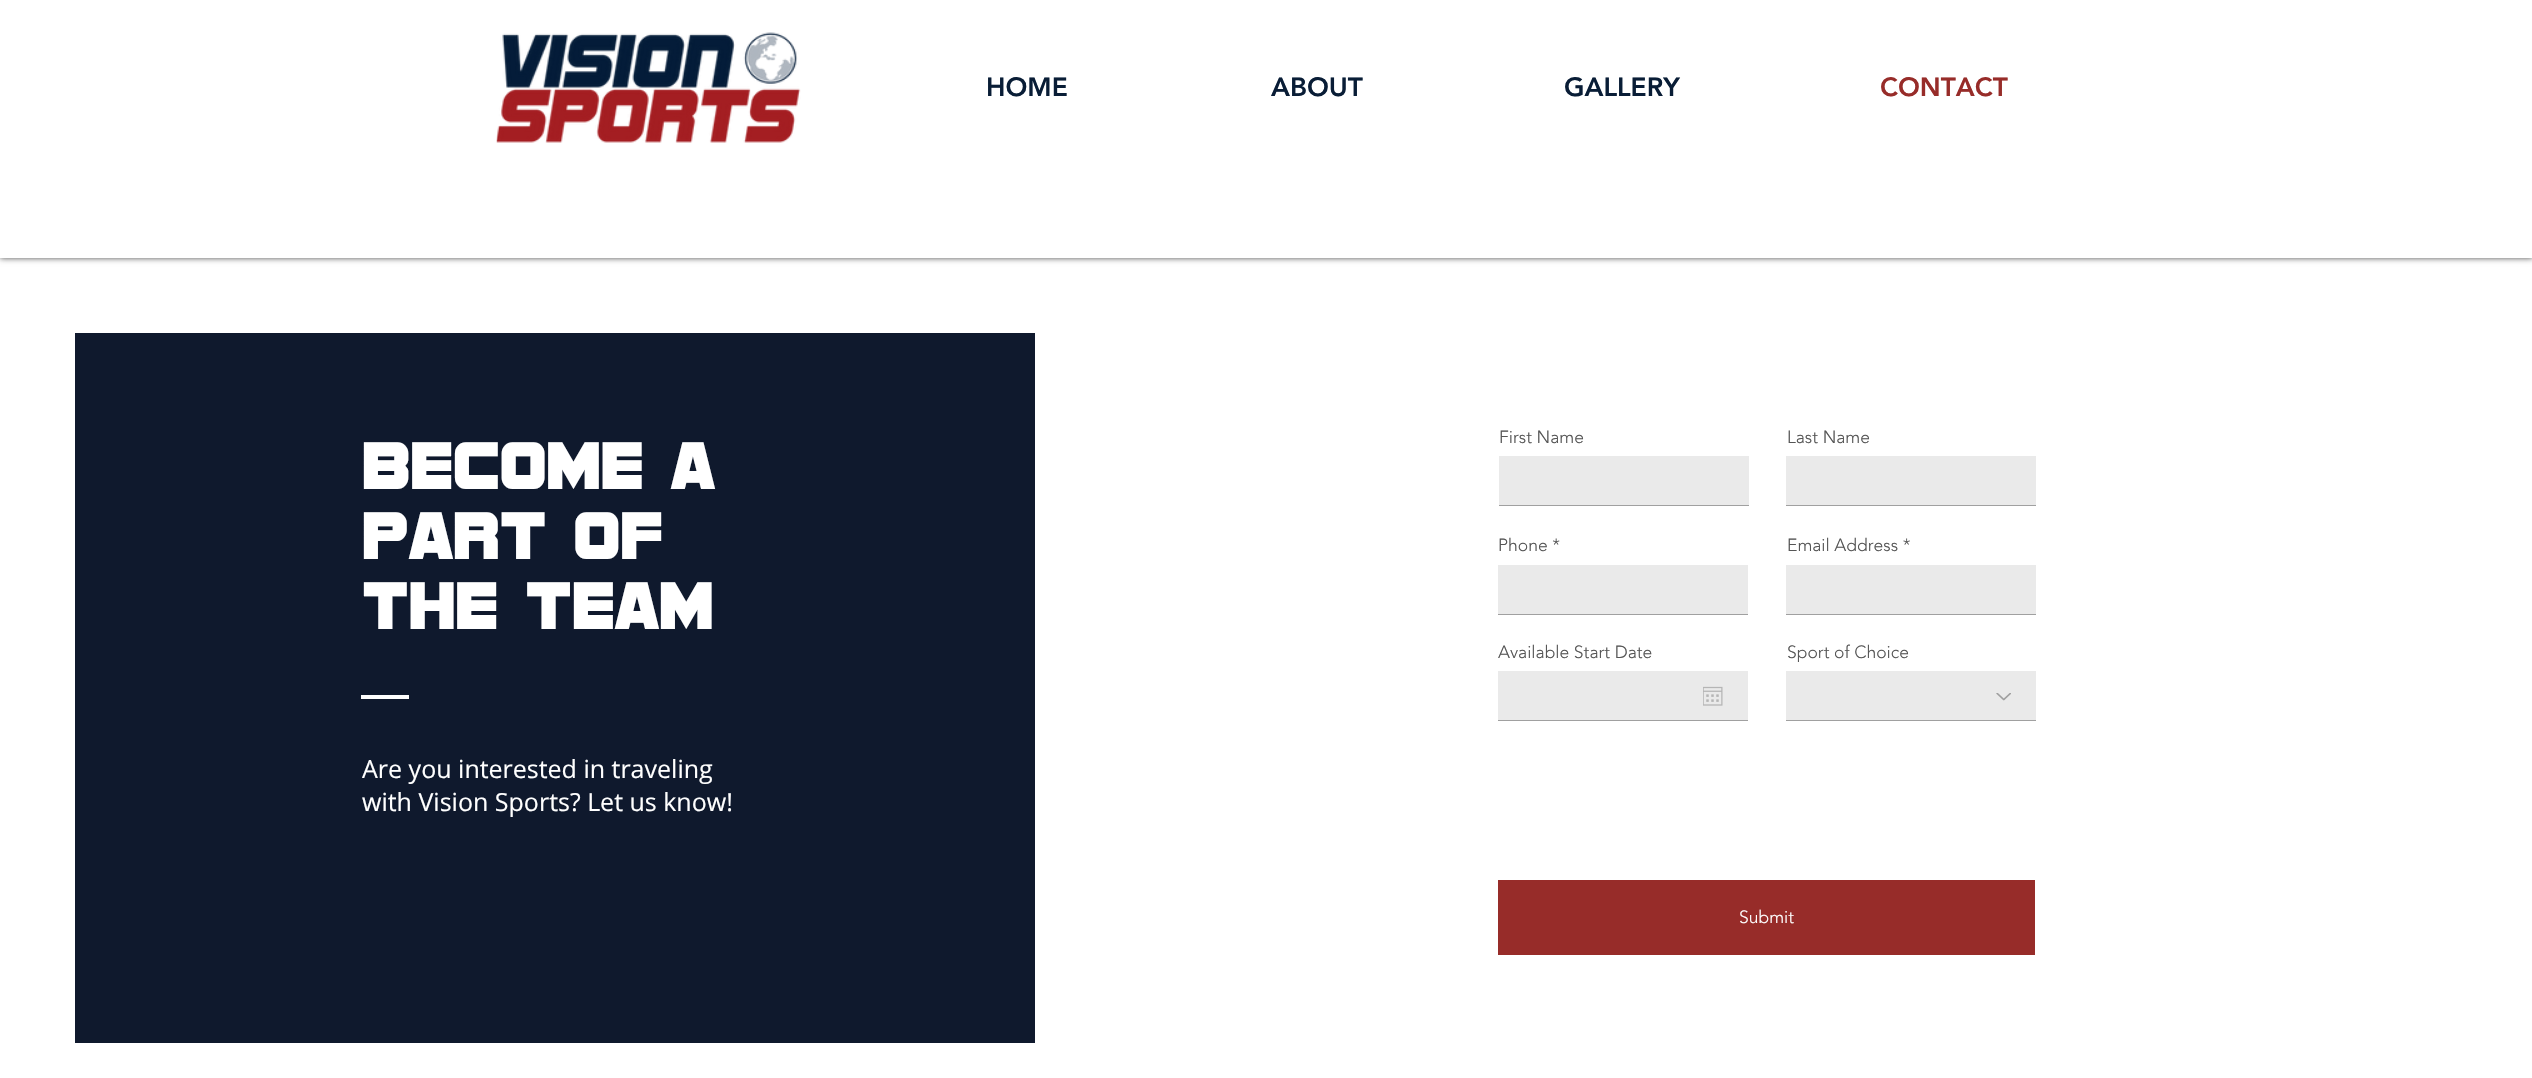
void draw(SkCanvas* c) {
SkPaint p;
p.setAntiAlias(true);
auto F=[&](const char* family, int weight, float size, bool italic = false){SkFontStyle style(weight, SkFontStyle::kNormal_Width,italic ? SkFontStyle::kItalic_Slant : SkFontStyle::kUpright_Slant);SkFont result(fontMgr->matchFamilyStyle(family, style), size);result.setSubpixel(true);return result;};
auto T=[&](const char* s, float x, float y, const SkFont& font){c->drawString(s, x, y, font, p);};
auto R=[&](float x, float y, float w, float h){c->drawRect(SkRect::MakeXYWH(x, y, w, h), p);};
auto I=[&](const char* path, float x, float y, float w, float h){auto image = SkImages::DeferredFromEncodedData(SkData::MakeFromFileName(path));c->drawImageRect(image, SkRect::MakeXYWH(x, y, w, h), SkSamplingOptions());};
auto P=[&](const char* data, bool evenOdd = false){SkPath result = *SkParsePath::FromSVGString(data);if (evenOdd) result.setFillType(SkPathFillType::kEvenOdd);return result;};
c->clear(0xffffffff);
c->save();
c->clipPath(P("M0 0h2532v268h-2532zm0 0h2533v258h-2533z",true),true);
p.setColor(0xb3000000);
p.setMaskFilter(SkMaskFilter::MakeBlur(kNormal_SkBlurStyle, 3));
c->drawRect(SkRect::MakeXYWH(0,0,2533,258),p);
p.setMaskFilter(nullptr);
c->restore();
p.setColor(0x99ffffff);
R(0,257,2532,1);
I("1.png",496,32,305,111);
auto f1 = F("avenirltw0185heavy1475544",900,26.25);
p.setColor(0xff091d36);
T("HOME",986,96,f1);
T("ABOUT",1271,96,f1);
T("GALLERY",1564,96,f1);
p.setColor(0xff972c29);
T("CONTACT",1880,96,f1);
p.setColor(0xff0f192d);
R(75,333,960,710);
auto f2 = F("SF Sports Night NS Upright",400,70);
p.setColor(0xffffffff);
T("Become a",362,489,f2);
T("Part of",362,559,f2);
T("the team",362,629,f2);
R(361,695,48,4);
auto f3 = F("Open Sans",400,25);
T("Are you interested in traveling",362,778,f3);
T("with Vision Sports? Let us know!",362,811,f3);
auto f4 = F("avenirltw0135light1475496",300,17.5);
p.setColor(0xff555555);
T("First Name",1499,443,f4);
p.setColor(0xffeaeaea);
R(1499,456,250,49);
p.setColor(0xffa0a0a0);
R(1499,505,250,1);
p.setColor(0xff555555);
T("Last Name",1787,443,f4);
p.setColor(0xffeaeaea);
R(1786,456,250,49);
p.setColor(0xffa0a0a0);
R(1786,505,250,1);
p.setColor(0xff555555);
T("Phone *",1498,551,f4);
p.setColor(0xffeaeaea);
R(1498,565,250,49);
p.setColor(0xffa0a0a0);
R(1498,614,250,1);
p.setColor(0xff555555);
T("Email Address *",1787,551,f4);
p.setColor(0xffeaeaea);
R(1786,565,250,49);
p.setColor(0xffa0a0a0);
R(1786,614,250,1);
p.setColor(0xff555555);
T("Available Start Date",1498,658,f4);
p.setColor(0xffeaeaea);
R(1498,671,250,49);
p.setColor(0xffa0a0a0);
R(1498,720,250,1);
I("2.png",1703,686,20,20);
p.setColor(0xff555555);
T("Sport of Choice",1787,658,f4);
p.setColor(0xffeaeaea);
R(1786,671,250,49);
p.setColor(0xffa0a0a0);
R(1786,720,250,1);
I("3.png",1996,693,15,8);
p.setColor(0xff972c29);
R(1498,880,537,75);
p.setColor(0xffffffff);
T("Submit",1739,923,f4);
}
